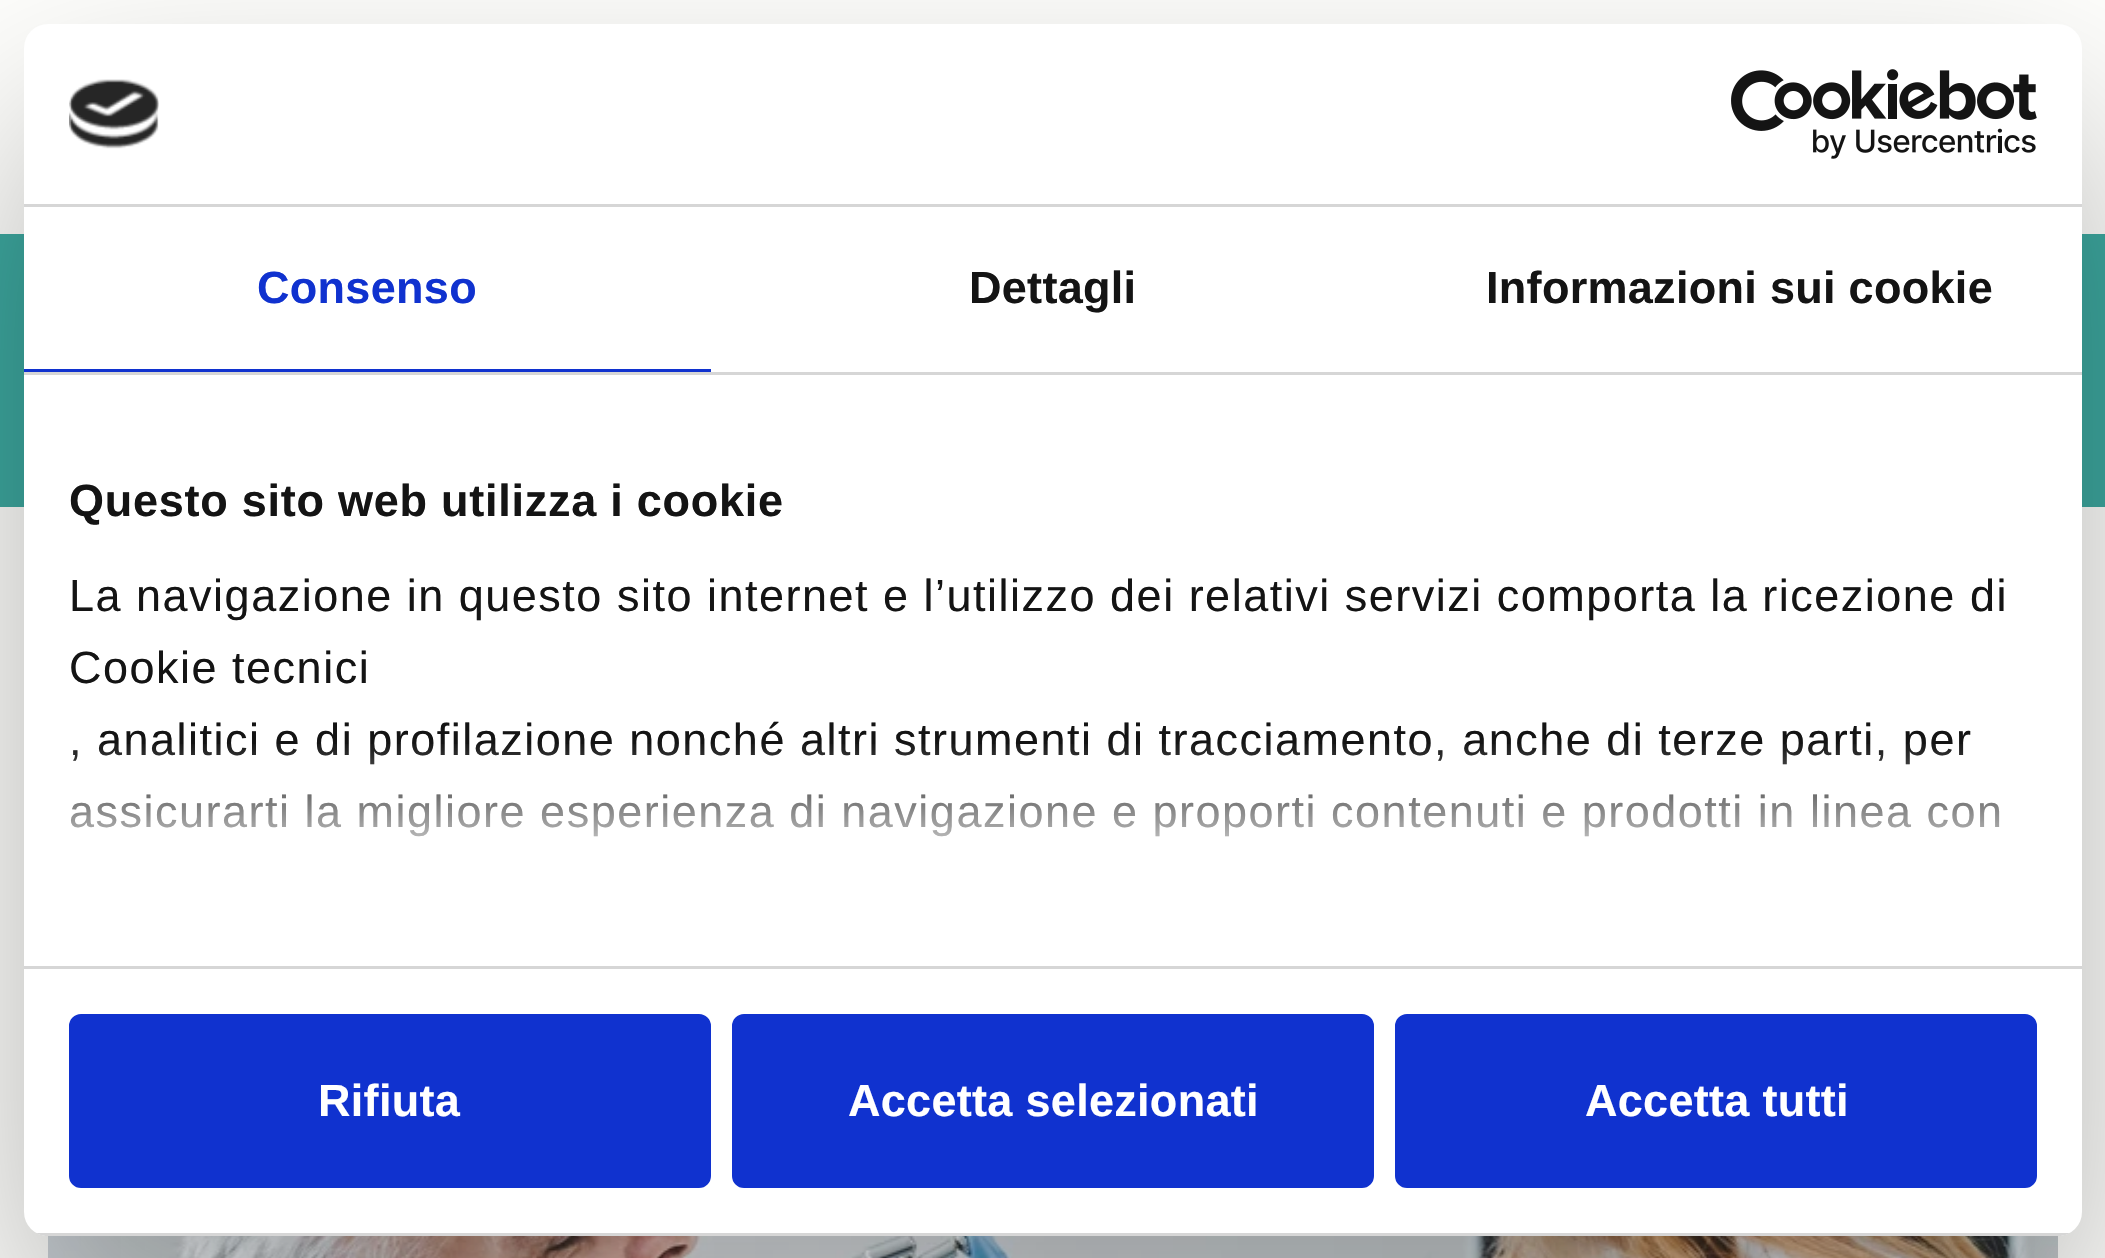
void draw(SkCanvas* c) {
SkPaint p;
p.setAntiAlias(true);
auto F=[&](const char* family, int weight, float size, bool italic = false){SkFontStyle style(weight, SkFontStyle::kNormal_Width,italic ? SkFontStyle::kItalic_Slant : SkFontStyle::kUpright_Slant);SkFont result(fontMgr->matchFamilyStyle(family, style), size);result.setSubpixel(true);return result;};
auto L=[&](const char* s, float x, float y, const SkFont& font, const SkPaint& ink, float letter, float word){std::vector<SkGlyphID> glyphs(font.countText(s, strlen(s), SkTextEncoding::kUTF8));std::vector<float> xs(glyphs.size());font.textToGlyphs(s, strlen(s), SkTextEncoding::kUTF8, glyphs);font.getXPos(glyphs, xs, x);float extra = 0;for (size_t i = 0; i < glyphs.size(); i++) {xs[i] += extra;extra += letter + word * (glyphs[i] == font.unicharToGlyph(' '));}c->drawTextBlob(SkTextBlob::MakeFromPosHGlyphs(glyphs, xs, y, font), 0, 0, ink);};
auto R=[&](float x, float y, float w, float h){c->drawRect(SkRect::MakeXYWH(x, y, w, h), p);};
auto Q=[&](float x, float y, float w, float h, float radius){c->drawRoundRect(SkRect::MakeXYWH(x, y, w, h), radius, radius, p);};
auto I=[&](const char* path, float x, float y, float w, float h){auto image = SkImages::DeferredFromEncodedData(SkData::MakeFromFileName(path));c->drawImageRect(image, SkRect::MakeXYWH(x, y, w, h), SkSamplingOptions());};
auto P=[&](const char* data, bool evenOdd = false){SkPath result = *SkParsePath::FromSVGString(data);if (evenOdd) result.setFillType(SkPathFillType::kEvenOdd);return result;};
c->clear(0xfffffffd);
p.setColor(0xff3da9a0);
R(0,234,2105,273);
I("1.png",48,1236,2010,22);
p.setColor(0x4d000000);
p.setMaskFilter(SkMaskFilter::MakeBlur(kNormal_SkBlurStyle, 102));
c->drawRoundRect(SkRect::MakeXYWH(24,120,2058,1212),24,24,p);
p.setMaskFilter(nullptr);
p.setColor(0xffffffff);
Q(24,24,2058,1212,24);
p.setColor(0xffd6d6d6);
R(24,204,2058,3);
I("2.png",69,79,90,70);
I("3.png",1731,69,306,90);
R(24,372,2058,3);
p.setColor(0xff1032cf);
R(24,369,687,3);
auto f1 = F("Liberation Sans",700,45);
L("Consenso",257,303,f1,p,.3,0);
p.setColor(0xff141414);
L("Dettagli",969,303,f1,p,.3,0);
L("Informazioni sui cookie",1486,303,f1,p,.3,0);
p.setColor(0xffd6d6d6);
R(24,966,2058,3);
p.setColor(0xff141414);
L("Questo sito web utilizza i cookie",69,516,f1,p,.75,0);
auto f2 = F("Liberation Sans",400,45);
L("La navigazione in questo sito internet e l’utilizzo dei relativi servizi comporta la ricezione di",69,611,f2,p,1.5,0);
L("Cookie tecnici",69,683,f2,p,1.5,0);
L(", analitici e di profilazione nonché altri strumenti di tracciamento, anche di terze parti, per",69,755,f2,p,1.5,0);
L("assicurarti la migliore esperienza di navigazione e proporti contenuti e prodotti in linea con",69,827,f2,p,1.5,0);
{
const SkColor colors[] = {0xffffffff,0xccffffff,0x00ffffff};
const float stops[] = {0,.5,1};
const SkPoint ends[] = {{1034,966}, {1034,741}};
p.setShader(SkGradientShader::MakeLinear(ends, colors, stops, 3, SkTileMode::kClamp));
p.setAlpha(255);
}
R(70,744,1930,93);
c->save();
c->clipPath(P("M48 24h2010c13.5 0 24 10.5 24 24v1164c0 13.5-10.5 24-24 24h-2010c-13.5 0-24-10.5-24-24v-1164c0-13.5 10.5-24 24-24z"),true);
p.setShader(nullptr);
p.setColor(0xffd6d6d6);
R(36,1233,2034,3);
c->restore();
p.setColor(0xff1032cf);
c->drawRoundRect(SkRect::MakeXYWH(72,1017,636,168),9,9,p);
p.setStroke(true);
p.setStrokeWidth(6);
c->drawRoundRect(SkRect::MakeXYWH(72,1017,636,168),9,9,p);
p.setStroke(false);
p.setColor(0xffffffff);
L("Rifiuta",318,1116,f1,p,.3,0);
p.setColor(0xff1032cf);
c->drawRoundRect(SkRect::MakeXYWH(735,1017,636,168),9,9,p);
p.setStroke(true);
c->drawRoundRect(SkRect::MakeXYWH(735,1017,636,168),9,9,p);
p.setStroke(false);
p.setColor(0xffffffff);
L("Accetta selezionati",848,1116,f1,p,.3,0);
p.setColor(0xff1032cf);
c->drawRoundRect(SkRect::MakeXYWH(1398,1017,636,168),9,9,p);
p.setStroke(true);
c->drawRoundRect(SkRect::MakeXYWH(1398,1017,636,168),9,9,p);
p.setStroke(false);
p.setColor(0xffffffff);
L("Accetta tutti",1585,1116,f1,p,.3,0);
}
